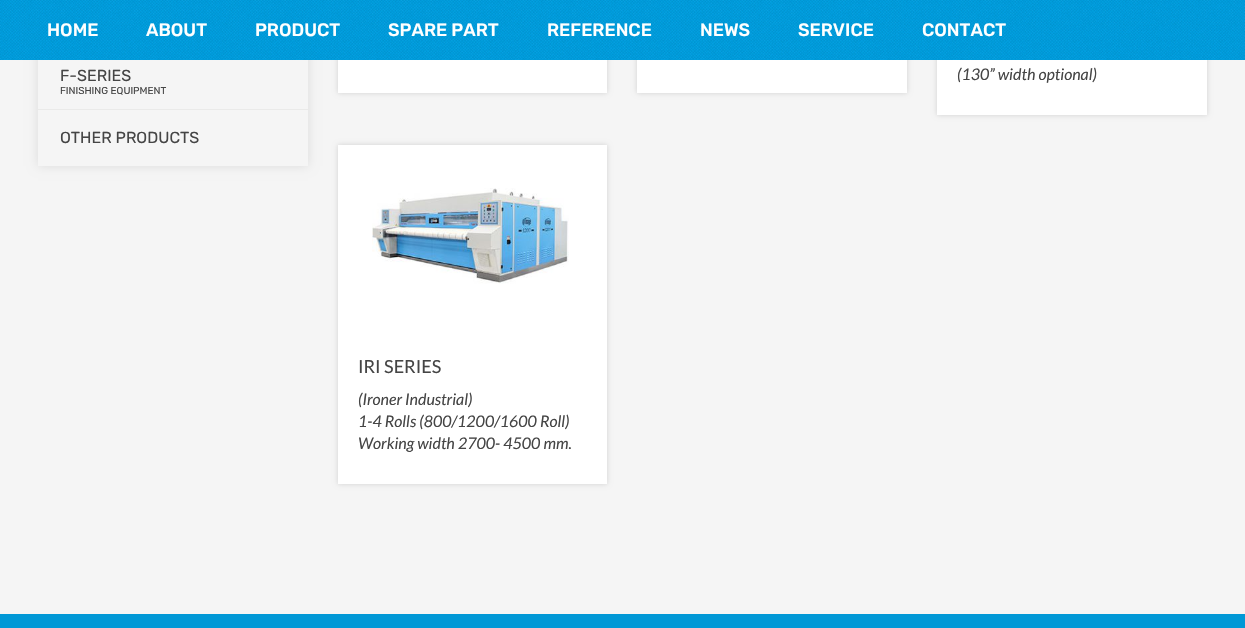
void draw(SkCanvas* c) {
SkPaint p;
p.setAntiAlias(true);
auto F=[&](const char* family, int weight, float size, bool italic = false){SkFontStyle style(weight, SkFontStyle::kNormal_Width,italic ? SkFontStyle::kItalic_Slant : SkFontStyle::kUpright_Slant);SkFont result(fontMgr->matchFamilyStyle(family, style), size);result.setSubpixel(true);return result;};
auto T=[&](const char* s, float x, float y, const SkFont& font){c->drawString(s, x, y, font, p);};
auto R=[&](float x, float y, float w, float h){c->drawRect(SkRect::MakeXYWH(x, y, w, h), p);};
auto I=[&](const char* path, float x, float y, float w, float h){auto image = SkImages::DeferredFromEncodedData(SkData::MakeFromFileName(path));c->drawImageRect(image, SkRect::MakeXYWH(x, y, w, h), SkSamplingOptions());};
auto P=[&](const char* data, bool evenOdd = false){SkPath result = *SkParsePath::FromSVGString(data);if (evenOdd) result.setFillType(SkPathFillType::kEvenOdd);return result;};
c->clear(0xfff5f5f5);
c->save();
c->clipPath(P("M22 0h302v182h-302zm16-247h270v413h-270z",true),true);
p.setColor(0x1a000000);
p.setMaskFilter(SkMaskFilter::MakeBlur(kNormal_SkBlurStyle, 5));
c->drawRect(SkRect::MakeXYWH(38,-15,270,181),p);
p.setMaskFilter(nullptr);
c->restore();
p.setColor(0x26000000);
p.setMaskFilter(SkMaskFilter::MakeBlur(kNormal_SkBlurStyle, 2.5));
c->drawRect(SkRect::MakeXYWH(338,-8,269,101),p);
p.setMaskFilter(nullptr);
p.setMaskFilter(SkMaskFilter::MakeBlur(kNormal_SkBlurStyle, 2.5));
c->drawRect(SkRect::MakeXYWH(637,-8,270,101),p);
p.setMaskFilter(nullptr);
p.setMaskFilter(SkMaskFilter::MakeBlur(kNormal_SkBlurStyle, 2.5));
c->drawRect(SkRect::MakeXYWH(937,-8,270,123),p);
p.setMaskFilter(nullptr);
I("1.png",0,0,1245,60);
auto f1 = F("Rubik",500,18);
p.setColor(0xffffffff);
T("HOME",47,36,f1);
T("ABOUT",146,36,f1);
T("PRODUCT",255,36,f1);
T("SPARE PART",388,36,f1);
T("REFERENCE",547,36,f1);
T("NEWS",700,36,f1);
T("SERVICE",798,36,f1);
T("CONTACT",922,36,f1);
p.setColor(0xffeaeae9);
R(38,109,270,1);
auto f2 = F("Rubik",400,16);
p.setColor(0xff454545);
T("F-SERIES",60,81,f2);
auto f3 = F("Rubik",400,10);
T("FINISHING EQUIPMENT",60,94,f3);
T("OTHER PRODUCTS",60,143,f2);
p.setColor(0xffffffff);
R(338,60,269,33);
R(637,60,270,33);
R(937,60,270,55);
auto f4 = F("Lato",400,16,true);
p.setColor(0xff454545);
T("(130” width optional)",957,80,f4);
p.setColor(0x26000000);
p.setMaskFilter(SkMaskFilter::MakeBlur(kNormal_SkBlurStyle, 2.5));
c->drawRect(SkRect::MakeXYWH(338,145,269,339),p);
p.setMaskFilter(nullptr);
p.setColor(0xffffffff);
R(338,145,269,339);
I("2.png",372,188,197,96);
auto f5 = F("Lato",400,18);
p.setColor(0xff454545);
T("IRI SERIES",358,373,f5);
T("(Ironer Industrial)",358,405,f4);
T("1-4 Rolls (800/1200/1600 Roll)",358,427,f4);
T("Working width 2700- 4500 mm.",358,449,f4);
p.setColor(0xff0098d6);
R(0,614,1245,14);
}
